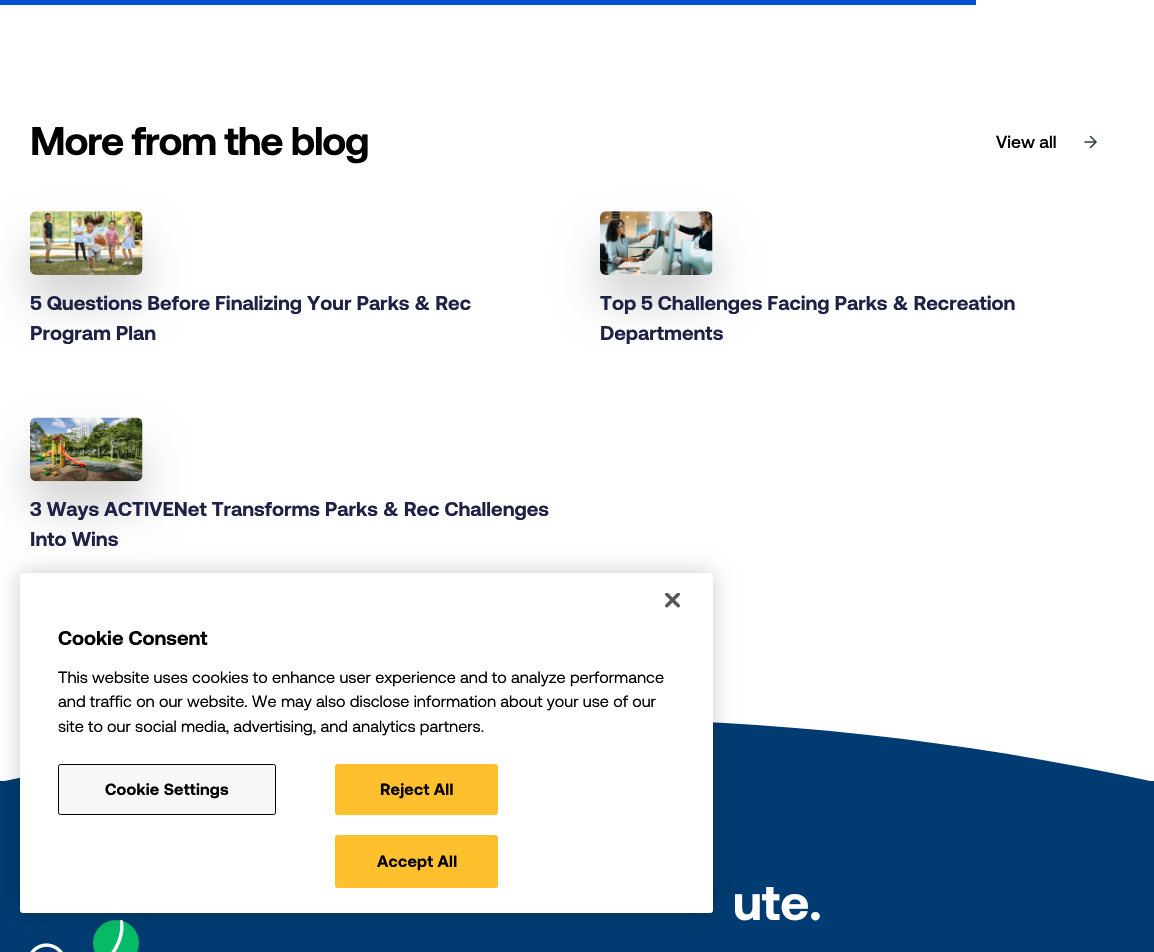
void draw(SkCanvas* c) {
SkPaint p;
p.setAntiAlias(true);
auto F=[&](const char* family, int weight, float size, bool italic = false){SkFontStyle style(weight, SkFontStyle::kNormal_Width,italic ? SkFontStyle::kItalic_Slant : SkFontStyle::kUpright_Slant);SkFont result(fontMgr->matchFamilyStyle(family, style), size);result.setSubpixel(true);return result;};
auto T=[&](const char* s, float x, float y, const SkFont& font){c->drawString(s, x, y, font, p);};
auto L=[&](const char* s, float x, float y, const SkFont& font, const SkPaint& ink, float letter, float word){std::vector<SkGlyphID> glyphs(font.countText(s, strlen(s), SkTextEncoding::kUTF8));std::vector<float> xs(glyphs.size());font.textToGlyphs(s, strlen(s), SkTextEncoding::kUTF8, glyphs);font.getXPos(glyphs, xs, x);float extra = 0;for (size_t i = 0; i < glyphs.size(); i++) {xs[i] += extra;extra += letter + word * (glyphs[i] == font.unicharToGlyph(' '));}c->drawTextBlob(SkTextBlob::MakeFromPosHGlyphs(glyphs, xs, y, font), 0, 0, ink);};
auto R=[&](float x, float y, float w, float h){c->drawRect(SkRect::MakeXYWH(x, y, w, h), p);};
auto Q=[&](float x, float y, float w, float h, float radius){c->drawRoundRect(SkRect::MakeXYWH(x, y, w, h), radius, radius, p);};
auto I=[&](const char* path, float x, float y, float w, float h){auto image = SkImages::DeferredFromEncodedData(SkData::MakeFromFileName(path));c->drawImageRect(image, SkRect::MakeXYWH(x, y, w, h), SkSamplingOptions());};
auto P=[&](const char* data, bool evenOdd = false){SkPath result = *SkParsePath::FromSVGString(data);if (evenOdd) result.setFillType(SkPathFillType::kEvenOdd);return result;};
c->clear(0xffffffff);
p.setColor(0xff0052cc);
R(0,0,976,5);
auto f1 = F("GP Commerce",700,40);
p.setColor(0xff000000);
L("More from the blog",30,155,f1,p,-1.25,0);
auto f2 = F("GP Commerce",500,17.5);
T("View all",996,148,f2);
p.setStroke(true);
p.setStrokeWidth(1.6);
p.setStrokeCap(SkPaint::kRound_Cap);
p.setStrokeJoin(SkPaint::kRound_Join);
p.setColor(0xff353e44);
c->drawPath(P("M1090.5 136.5l5.5 5.5l-5.5 5.5m-5.5-5.5h10.5z"),p);
p.setStroke(false);
p.setColor(0x29000000);
p.setMaskFilter(SkMaskFilter::MakeBlur(kNormal_SkBlurStyle, 21));
c->drawRoundRect(SkRect::MakeXYWH(30,239,113,64),6,6,p);
p.setMaskFilter(nullptr);
I("1.png",30,211,113,64);
auto f3 = F("GP Commerce",700,20);
p.setColor(0xff202146);
T("5 Questions Before Finalizing Your Parks & Rec",30,310,f3);
T("Program Plan",30,340,f3);
p.setColor(0x29000000);
p.setMaskFilter(SkMaskFilter::MakeBlur(kNormal_SkBlurStyle, 21));
c->drawRoundRect(SkRect::MakeXYWH(600,239,113,64),6,6,p);
p.setMaskFilter(nullptr);
I("2.png",600,211,113,64);
p.setColor(0xff202146);
T("Top 5 Challenges Facing Parks & Recreation",600,310,f3);
T("Departments",600,340,f3);
p.setColor(0x29000000);
p.setMaskFilter(SkMaskFilter::MakeBlur(kNormal_SkBlurStyle, 21));
c->drawRoundRect(SkRect::MakeXYWH(30,445,113,64),6,6,p);
p.setMaskFilter(nullptr);
I("3.png",30,417,113,65);
p.setColor(0xff202146);
T("3 Ways ACTIVENet Transforms Parks & Rec Challenges",30,516,f3);
T("Into Wins",30,546,f3);
p.setColor(0xff003c71);
R(0,722,1154,230);
c->save();
c->clipRect(SkRect::MakeXYWH(0,714,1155,67));
p.setColor(0xffffffff);
c->drawPath(P("M0 782c193-42 385-63 578-63c192 0 384 21 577 63v-70h-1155z",true),p);
c->restore();
p.setColor(0xff06bb67);
c->drawCircle(116,943,23,p);
I("5.png",30,920,94,32);
p.setColor(0x33000000);
p.setMaskFilter(SkMaskFilter::MakeBlur(kNormal_SkBlurStyle, 11));
c->drawRoundRect(SkRect::MakeXYWH(20,573,693,340),3,3,p);
p.setMaskFilter(nullptr);
p.setColor(0xffffffff);
Q(20,573,693,340,3);
I("4.png",665,593,15,15);
p.setColor(0xff000000);
T("Cookie Consent",58,645,f3);
auto f4 = F("GP Commerce",400,16.25);
T("This website uses cookies to enhance user experience and to analyze performance",58,683,f4);
T("and traffic on our website. We may also disclose information about your use of our",58,707,f4);
T("site to our social media, advertising, and analytics partners.",58,732,f4);
p.setColor(0xfff7f7f7);
c->drawRoundRect(SkRect::MakeXYWH(58.5,764.5,217,50),2,2,p);
p.setStroke(true);
p.setStrokeWidth(1);
p.setStrokeCap(SkPaint::kButt_Cap);
p.setStrokeJoin(SkPaint::kMiter_Join);
p.setColor(0xff000000);
c->drawRoundRect(SkRect::MakeXYWH(58.5,764.5,217,50),2,2,p);
auto f5 = F("GP Commerce",700,16.25);
p.setStroke(false);
L("Cookie Settings",105,795,f5,p,.2,0);
p.setColor(0xffffc02e);
c->drawRoundRect(SkRect::MakeXYWH(335.5,764.5,162,50),2,2,p);
p.setStroke(true);
c->drawRoundRect(SkRect::MakeXYWH(335.5,764.5,162,50),2,2,p);
p.setStroke(false);
p.setColor(0xff000000);
L("Reject All",380,795,f5,p,.2,0);
p.setColor(0xffffc02e);
c->drawRoundRect(SkRect::MakeXYWH(335.5,835.5,162,52),2,2,p);
p.setStroke(true);
c->drawRoundRect(SkRect::MakeXYWH(335.5,835.5,162,52),2,2,p);
p.setStroke(false);
p.setColor(0xff000000);
L("Accept All",377,867,f5,p,.2,0);
auto f6 = F("GP Commerce",700,50);
p.setColor(0xffffffff);
T("ute.",733,920,f6);
}
